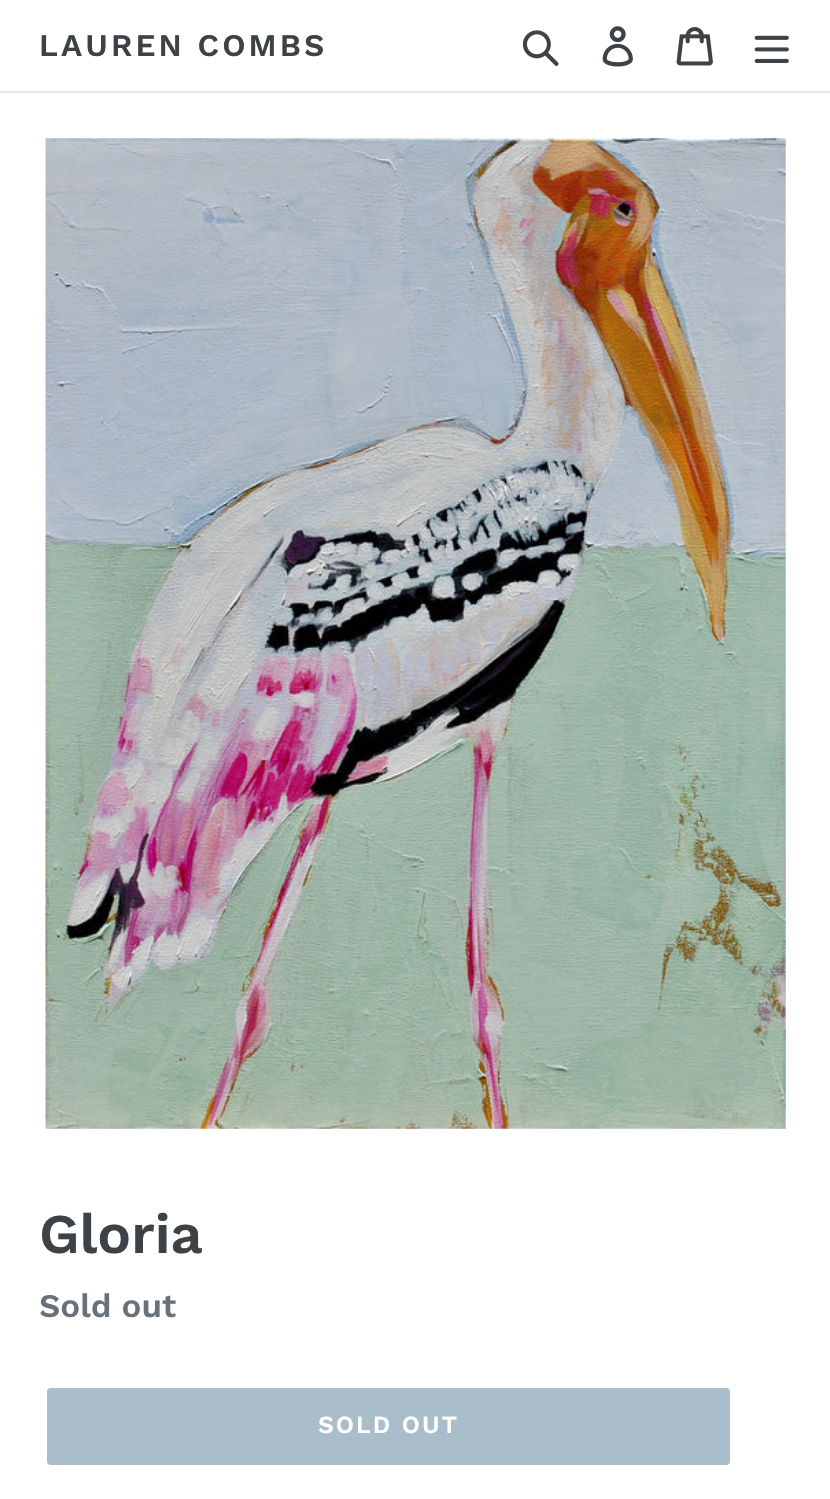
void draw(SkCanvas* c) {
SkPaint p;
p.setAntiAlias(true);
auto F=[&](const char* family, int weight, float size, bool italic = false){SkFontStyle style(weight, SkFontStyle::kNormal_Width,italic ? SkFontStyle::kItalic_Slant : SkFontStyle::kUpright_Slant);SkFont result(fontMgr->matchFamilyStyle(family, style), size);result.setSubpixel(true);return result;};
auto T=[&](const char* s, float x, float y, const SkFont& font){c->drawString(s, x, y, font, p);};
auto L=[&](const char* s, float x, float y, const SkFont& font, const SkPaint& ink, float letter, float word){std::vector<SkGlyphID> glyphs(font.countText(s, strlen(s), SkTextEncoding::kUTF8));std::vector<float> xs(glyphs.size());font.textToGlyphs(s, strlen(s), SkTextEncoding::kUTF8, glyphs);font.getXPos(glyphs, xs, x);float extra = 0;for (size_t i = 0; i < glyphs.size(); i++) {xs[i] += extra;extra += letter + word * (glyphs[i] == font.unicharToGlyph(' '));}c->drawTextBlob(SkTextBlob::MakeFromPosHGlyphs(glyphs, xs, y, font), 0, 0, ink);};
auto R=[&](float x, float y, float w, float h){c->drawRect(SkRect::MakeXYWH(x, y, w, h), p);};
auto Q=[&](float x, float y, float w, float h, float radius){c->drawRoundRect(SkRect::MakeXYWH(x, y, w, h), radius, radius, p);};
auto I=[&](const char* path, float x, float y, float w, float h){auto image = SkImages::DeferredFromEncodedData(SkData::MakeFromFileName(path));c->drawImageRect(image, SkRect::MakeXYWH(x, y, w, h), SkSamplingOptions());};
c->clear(0xffffffff);
p.setColor(0xffe8e9eb);
R(0,91,830,2);
auto f1 = F("Work Sans",600,31.5);
p.setColor(0xff3d4246);
L("LAUREN COMBS",39,56,f1,p,3.1,0);
I("1.png",522,30,37,36);
I("2.png",602,26,31,41);
I("3.png",676,27,37,39);
I("4.png",754,35,35,28);
I("5.png",45,138,741,991);
auto f2 = F("Work Sans",600,56);
T("Gloria",39,1253,f2);
auto f3 = F("Work Sans",600,33);
p.setColor(0xff69727b);
T("Sold out",39,1317,f3);
p.setColor(0xffaabdcb);
Q(47,1388,683,77,4);
auto f4 = F("Work Sans",600,24.5);
p.setColor(0xffffffff);
L("SOLD OUT",318,1433,f4,p,2,0);
}
